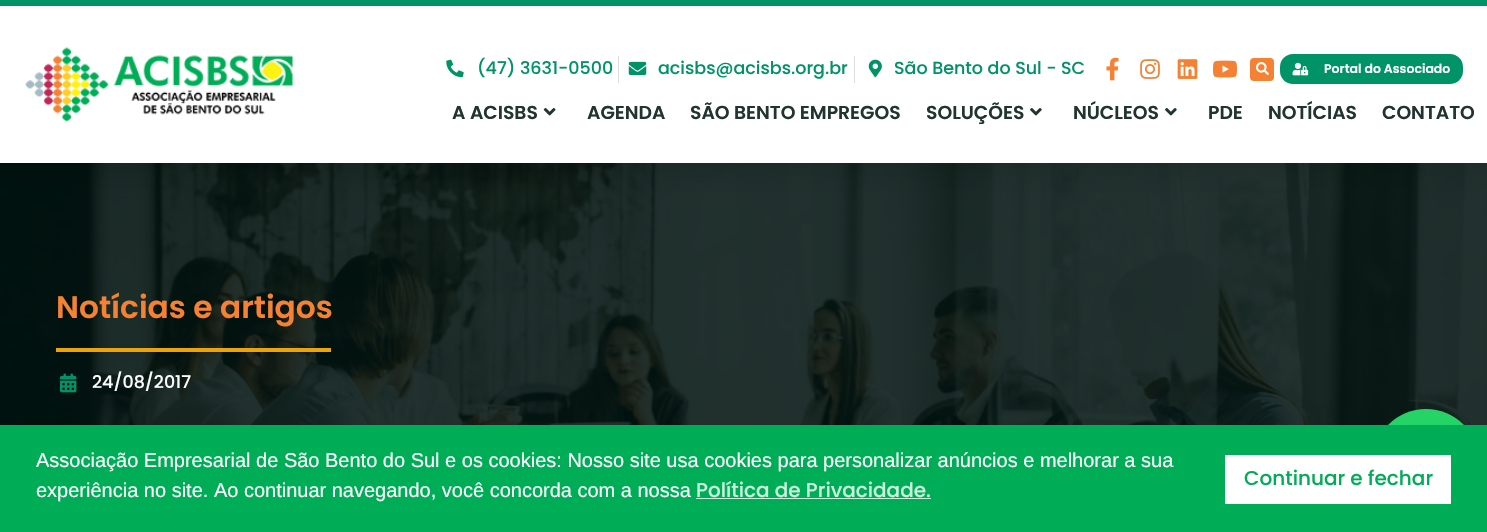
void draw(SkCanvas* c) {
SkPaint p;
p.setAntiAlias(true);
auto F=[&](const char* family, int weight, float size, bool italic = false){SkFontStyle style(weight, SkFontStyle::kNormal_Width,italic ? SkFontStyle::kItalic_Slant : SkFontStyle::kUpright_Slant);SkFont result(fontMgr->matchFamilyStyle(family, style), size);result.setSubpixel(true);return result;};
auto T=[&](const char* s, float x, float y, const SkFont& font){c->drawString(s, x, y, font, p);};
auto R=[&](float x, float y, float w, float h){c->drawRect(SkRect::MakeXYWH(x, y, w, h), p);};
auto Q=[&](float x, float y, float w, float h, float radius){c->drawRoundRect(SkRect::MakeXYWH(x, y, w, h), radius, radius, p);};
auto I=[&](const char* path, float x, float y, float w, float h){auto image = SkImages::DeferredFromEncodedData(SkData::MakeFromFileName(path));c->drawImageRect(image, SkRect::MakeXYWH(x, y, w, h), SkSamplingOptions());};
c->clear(0xffffffff);
I("13.png",0,163,1487,262);
p.setColor(0x1a000000);
p.setMaskFilter(SkMaskFilter::MakeBlur(kNormal_SkBlurStyle, 12.5));
c->drawRect(SkRect::MakeXYWH(0,13,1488,162),p);
p.setMaskFilter(nullptr);
p.setColor(0xffffffff);
R(0,6,1487,157);
p.setColor(0xff009368);
R(0,0,1487,6);
I("1.png",25,47,268,75);
I("2.png",446,59,18,19);
auto f1 = F("Poppins",500,17.5);
T("(47) 3631-0500",477,74,f1);
p.setColor(0xffdddddd);
R(618,56,1,27);
I("3.png",628,61,19,14);
p.setColor(0xff009368);
T("acisbs@acisbs.org.br",658,74,f1);
p.setColor(0xffdddddd);
R(854,56,1,27);
I("4.png",868,59,14,19);
p.setColor(0xff009368);
T("São Bento do Sul - SC",894,74,f1);
I("5.png",1106,57,13,24);
I("6.png",1140,59,20,20);
I("7.png",1177,59,21,20);
I("8.png",1213,60,24,18);
p.setColor(0xfff48134);
Q(1250,58,24,23,4);
I("9.png",1256,62,13,14);
p.setColor(0xff009368);
Q(1280,54,183,30,13);
I("10.png",1292,62,17,14);
auto f2 = F("Poppins",600,12.5);
p.setColor(0xffffffff);
T("Portal do Associado",1324,73,f2);
auto f3 = F("Poppins",600,18.75);
p.setColor(0xff213430);
T("A ACISBS",452,119,f3);
I("11.png",543,108,13,8);
T("AGENDA",587,119,f3);
T("SÃO BENTO EMPREGOS",690,119,f3);
T("SOLUÇÕES",926,119,f3);
I("12.png",1030,108,12,8);
T("NÚCLEOS",1073,119,f3);
I("12.png",1165,108,12,8);
T("PDE",1208,119,f3);
T("NOTÍCIAS",1268,119,f3);
T("CONTATO",1382,119,f3);
auto f4 = F("Poppins",600,31.25);
p.setColor(0xfff48134);
T("Notícias e artigos",56,318,f4);
p.setColor(0xffeca30c);
R(56,348,275,4);
I("14.png",60,373,17,20);
p.setColor(0xffffffff);
T("24/08/2017",92,388,f1);
p.setColor(0xff25d366);
c->drawCircle(1426,462,53,p);
p.setColor(0xff00ad57);
R(0,425,1487,107);
auto f5 = F("Liberation Sans",400,20);
p.setColor(0xffffffff);
T("Associação Empresarial de São Bento do Sul e os cookies: Nosso site usa cookies para personalizar anúncios e melhorar a sua",36,467,f5);
T("experiência no site. Ao continuar navegando, você concorda com a nossa",36,497,f5);
auto f6 = F("Poppins",500,20);
p.setColor(0xffccefdd);
T("Política de Privacidade.",696,497,f6);
R(696,498,235,1);
p.setColor(0xffffffff);
R(1225,455,226,49);
p.setColor(0xff00ad57);
T("Continuar e fechar",1244,485,f6);
}
